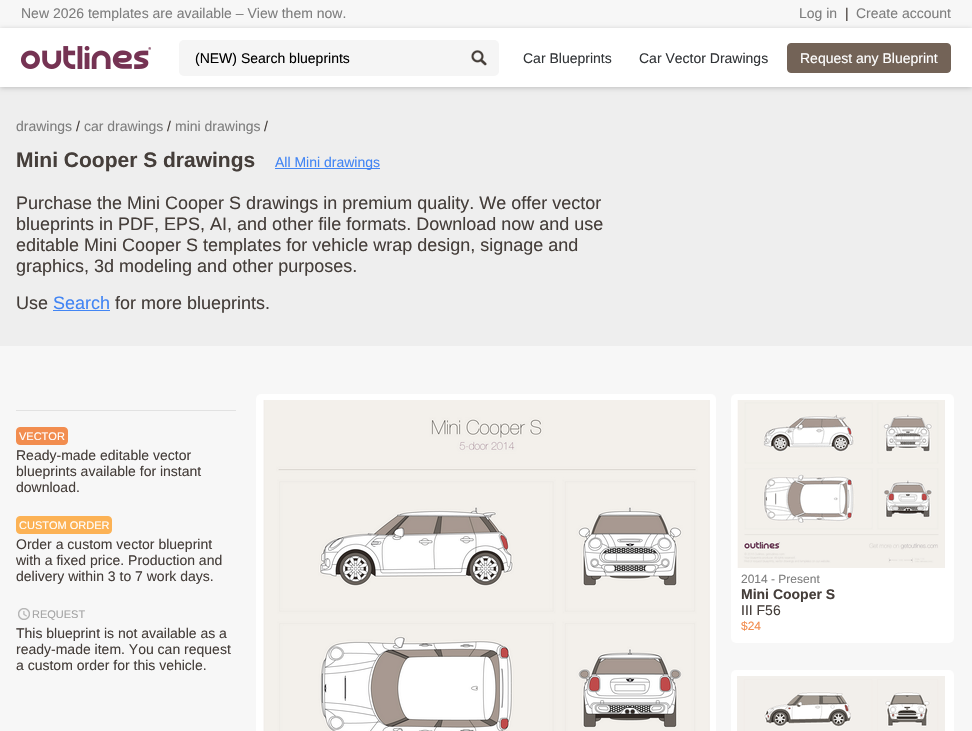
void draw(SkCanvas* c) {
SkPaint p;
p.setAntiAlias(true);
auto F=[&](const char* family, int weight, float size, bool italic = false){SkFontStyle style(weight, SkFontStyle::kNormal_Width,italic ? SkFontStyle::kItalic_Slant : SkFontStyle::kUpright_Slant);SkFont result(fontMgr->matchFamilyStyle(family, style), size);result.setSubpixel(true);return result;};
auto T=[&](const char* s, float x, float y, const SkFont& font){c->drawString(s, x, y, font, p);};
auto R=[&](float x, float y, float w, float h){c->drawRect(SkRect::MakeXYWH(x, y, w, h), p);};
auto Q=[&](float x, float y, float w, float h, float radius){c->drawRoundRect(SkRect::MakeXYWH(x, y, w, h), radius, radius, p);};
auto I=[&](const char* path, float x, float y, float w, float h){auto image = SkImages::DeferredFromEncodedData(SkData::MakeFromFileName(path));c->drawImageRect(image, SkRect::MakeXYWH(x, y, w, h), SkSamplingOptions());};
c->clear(0xfff7f7f7);
auto f1 = F("Liberation Sans",400,14);
p.setColor(0xff7e7e7e);
T("New 2026 templates are available – View them now.",21,18,f1);
T("Log in",799,18,f1);
p.setColor(0xff453e3a);
T("|",845,18,f1);
p.setColor(0xff7e7e7e);
T("Create account",856,18,f1);
p.setColor(0xffeeeeee);
R(0,87,972,259);
p.setColor(0x33000000);
p.setMaskFilter(SkMaskFilter::MakeBlur(kNormal_SkBlurStyle, 2.5));
c->drawRect(SkRect::MakeXYWH(0,29,972,59),p);
p.setMaskFilter(nullptr);
p.setColor(0xffffffff);
R(0,28,972,59);
I("1.png",21,46,130,23);
p.setColor(0xfff5f5f5);
Q(179,40,320,36,5);
p.setColor(0xff000000);
T("(NEW) Search blueprints",195,63,f1);
I("2.png",471,50,16,16);
p.setColor(0xff323538);
T("Car Blueprints",523,63,f1);
T("Car Vector Drawings",639,63,f1);
p.setColor(0xff736357);
c->drawRoundRect(SkRect::MakeXYWH(787.5,43.5,163,29),3.5,3.5,p);
p.setStroke(true);
p.setStrokeWidth(1);
c->drawRoundRect(SkRect::MakeXYWH(787.5,43.5,163,29),3.5,3.5,p);
p.setStroke(false);
p.setColor(0xffffffff);
T("Request any Blueprint",800,63,f1);
p.setColor(0xff7e7e7e);
T("drawings",16,131,f1);
p.setColor(0xff453e3a);
T("/",76,131,f1);
p.setColor(0xff7e7e7e);
T("car drawings",84,131,f1);
p.setColor(0xff453e3a);
T("/",167,131,f1);
p.setColor(0xff7e7e7e);
T("mini drawings",175,131,f1);
p.setColor(0xff453e3a);
T("/",264,131,f1);
auto f2 = F("Liberation Sans",700,21);
T("Mini Cooper S drawings",16,167,f2);
p.setColor(0xff4285f4);
R(275,168,105,1);
T("All Mini drawings",275,167,f1);
auto f3 = F("Liberation Sans",400,18);
p.setColor(0xff453e3a);
T("Purchase the Mini Cooper S drawings in premium quality. We offer vector",16,209,f3);
T("blueprints in PDF, EPS, AI, and other file formats. Download now and use",16,230,f3);
T("editable Mini Cooper S templates for vehicle wrap design, signage and",16,251,f3);
T("graphics, 3d modeling and other purposes.",16,272,f3);
T("Use",16,309,f3);
p.setColor(0xff4285f4);
T("Search",53,309,f3);
R(53,310,57,1);
p.setColor(0xff453e3a);
T("for more blueprints.",115,309,f3);
p.setColor(0xffe2e2e2);
R(16,410,220,1);
p.setColor(0xfff28d4f);
c->drawRoundRect(SkRect::MakeXYWH(16.5,427.5,51,17),3.5,3.5,p);
p.setStroke(true);
c->drawRoundRect(SkRect::MakeXYWH(16.5,427.5,51,17),3.5,3.5,p);
auto f4 = F("Liberation Sans",400,11);
p.setStroke(false);
p.setColor(0xffffffff);
T("VECTOR",19,440,f4);
p.setColor(0xff453e3a);
T("Ready-made editable vector",16,460,f1);
T("blueprints available for instant",16,476,f1);
T("download.",16,492,f1);
p.setColor(0xfffcb255);
c->drawRoundRect(SkRect::MakeXYWH(16.5,516.5,95,17),3.5,3.5,p);
p.setStroke(true);
c->drawRoundRect(SkRect::MakeXYWH(16.5,516.5,95,17),3.5,3.5,p);
p.setStroke(false);
p.setColor(0xffffffff);
T("CUSTOM ORDER",19,529,f4);
p.setColor(0xff453e3a);
T("Order a custom vector blueprint",16,549,f1);
T("with a fixed price. Production and",16,565,f1);
T("delivery within 3 to 7 work days.",16,581,f1);
I("3.png",18,608,12,12);
p.setColor(0xffa4a4a4);
T("REQUEST",32,618,f4);
p.setColor(0xff453e3a);
T("This blueprint is not available as a",16,638,f1);
T("ready-made item. You can request",16,654,f1);
T("a custom order for this vehicle.",16,670,f1);
p.setColor(0xffffffff);
Q(256,394,460,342,5);
I("4.png",263,400,447,331);
Q(731,394,223,249,5);
I("5.png",737,400,208,168);
auto f5 = F("Liberation Sans",400,12);
p.setColor(0xff7e7e7e);
T("2014 - Present",741,583,f5);
auto f6 = F("Liberation Sans",700,14);
p.setColor(0xff453e3a);
T("Mini Cooper S",741,599,f6);
T("III F56",741,615,f1);
p.setColor(0xfff28d4f);
T("$24",741,630,f5);
p.setColor(0xffffffff);
Q(731,670,223,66,5);
I("6.png",737,676,208,55);
}
